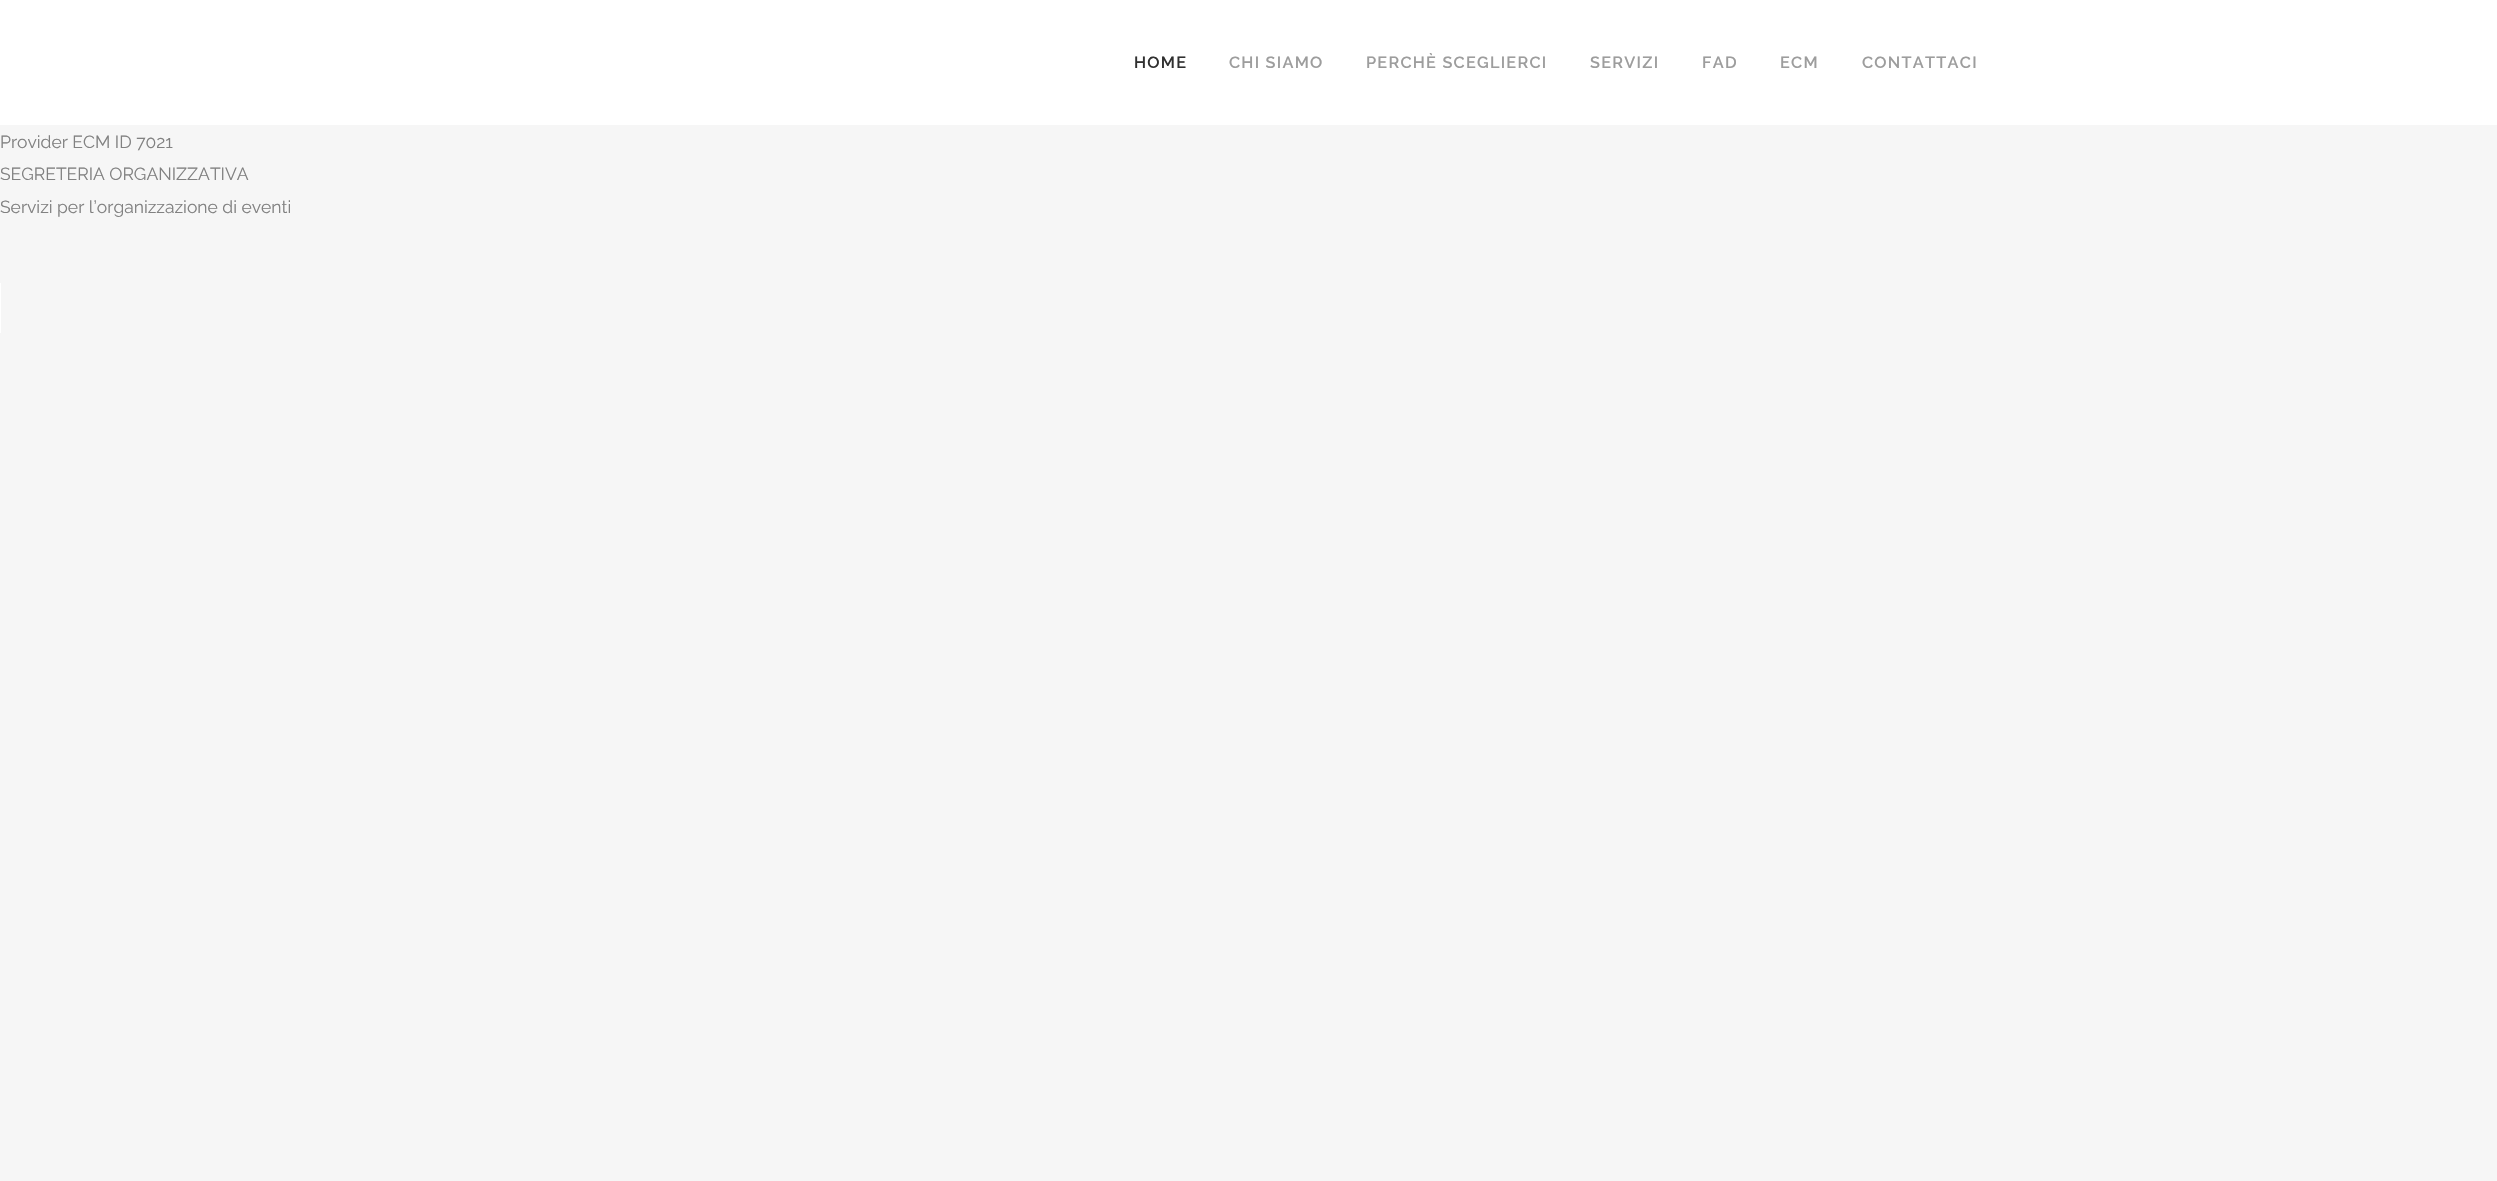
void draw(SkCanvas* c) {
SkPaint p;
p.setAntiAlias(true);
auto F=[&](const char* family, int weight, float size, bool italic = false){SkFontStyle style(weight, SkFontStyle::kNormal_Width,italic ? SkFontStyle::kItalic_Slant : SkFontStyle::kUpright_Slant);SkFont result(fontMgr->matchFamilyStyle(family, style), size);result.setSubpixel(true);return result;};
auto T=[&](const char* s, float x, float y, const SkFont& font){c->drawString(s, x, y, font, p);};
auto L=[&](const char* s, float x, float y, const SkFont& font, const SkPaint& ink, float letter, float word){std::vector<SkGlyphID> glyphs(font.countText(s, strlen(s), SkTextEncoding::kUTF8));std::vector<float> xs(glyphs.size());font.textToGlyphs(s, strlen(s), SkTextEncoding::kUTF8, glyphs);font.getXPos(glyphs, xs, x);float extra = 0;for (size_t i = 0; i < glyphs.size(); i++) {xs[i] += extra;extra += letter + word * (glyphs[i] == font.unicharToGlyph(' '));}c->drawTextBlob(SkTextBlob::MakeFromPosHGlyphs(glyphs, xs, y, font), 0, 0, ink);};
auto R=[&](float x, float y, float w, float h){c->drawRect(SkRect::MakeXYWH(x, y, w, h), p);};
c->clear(0xfff6f6f6);
p.setColor(0xffffffff);
R(0,0,2497,125);
auto f1 = F("Raleway",600,16.25);
p.setColor(0xff303030);
L("HOME",1134,68,f1,p,1.25,0);
p.setColor(0xff9d9d9d);
L("CHI SIAMO",1229,68,f1,p,1.25,0);
L("PERCHÈ SCEGLIERCI",1366,68,f1,p,1.25,0);
L("SERVIZI",1590,68,f1,p,1.25,0);
L("FAD",1702,68,f1,p,1.25,0);
L("ECM",1780,68,f1,p,1.25,0);
L("CONTATTACI",1862,68,f1,p,1.25,0);
auto f2 = F("Raleway",400,17.5);
p.setColor(0xff818181);
T("Provider ECM ID 7021",0,148,f2);
T("SEGRETERIA ORGANIZZATIVA",0,180,f2);
T("Servizi per l’organizzazione di eventi",0,213,f2);
p.setColor(0xffffffff);
R(0,283,1,50);
}
